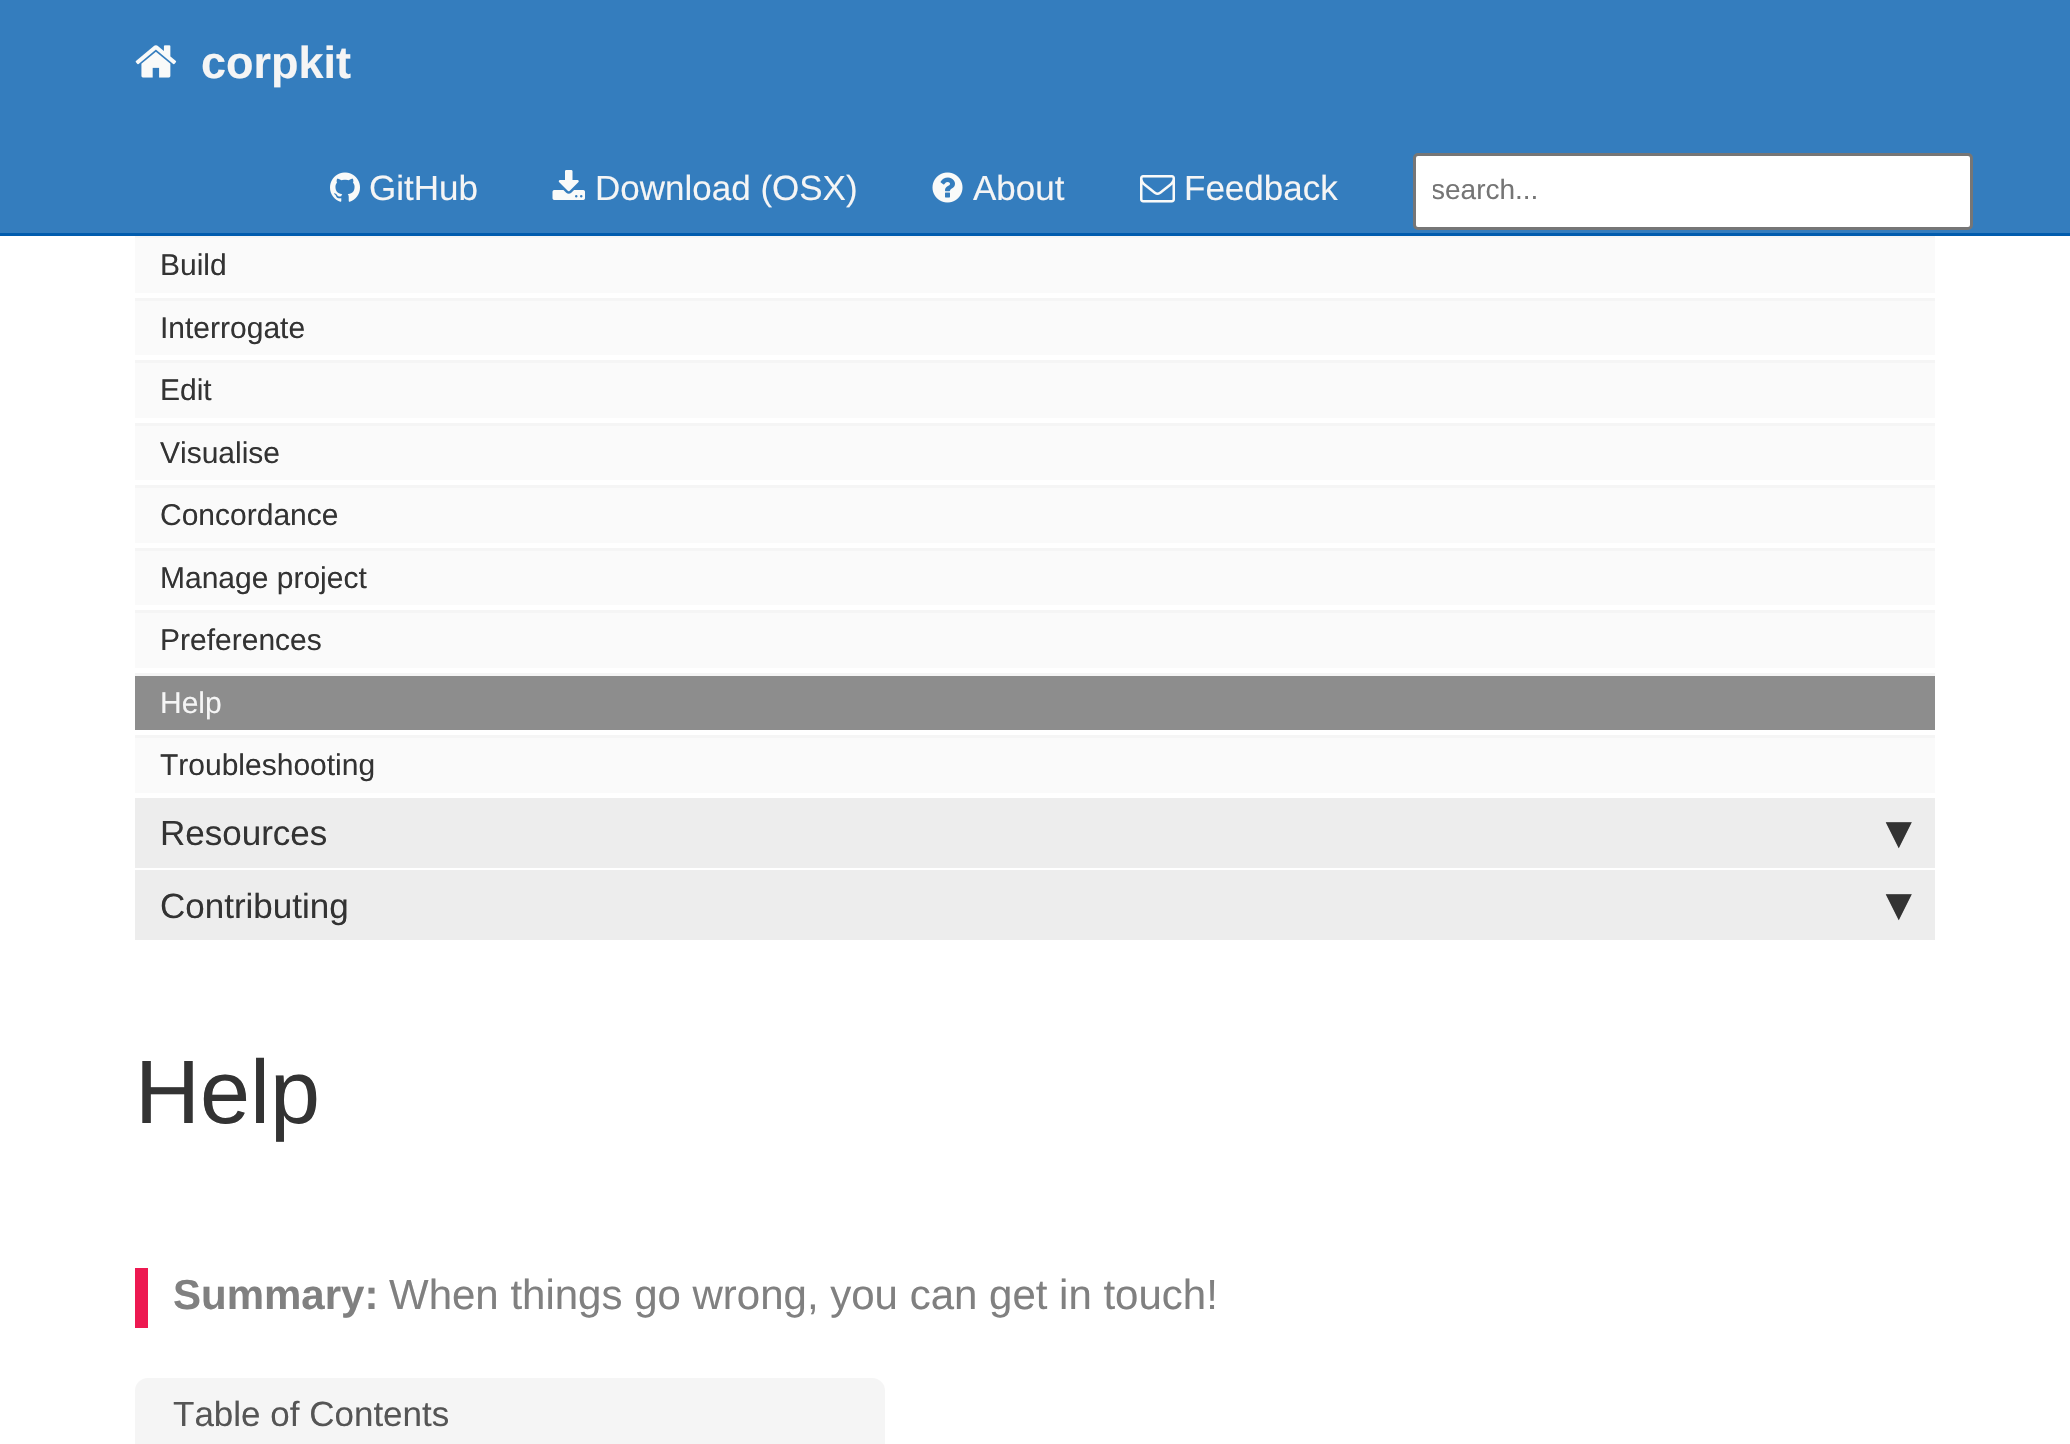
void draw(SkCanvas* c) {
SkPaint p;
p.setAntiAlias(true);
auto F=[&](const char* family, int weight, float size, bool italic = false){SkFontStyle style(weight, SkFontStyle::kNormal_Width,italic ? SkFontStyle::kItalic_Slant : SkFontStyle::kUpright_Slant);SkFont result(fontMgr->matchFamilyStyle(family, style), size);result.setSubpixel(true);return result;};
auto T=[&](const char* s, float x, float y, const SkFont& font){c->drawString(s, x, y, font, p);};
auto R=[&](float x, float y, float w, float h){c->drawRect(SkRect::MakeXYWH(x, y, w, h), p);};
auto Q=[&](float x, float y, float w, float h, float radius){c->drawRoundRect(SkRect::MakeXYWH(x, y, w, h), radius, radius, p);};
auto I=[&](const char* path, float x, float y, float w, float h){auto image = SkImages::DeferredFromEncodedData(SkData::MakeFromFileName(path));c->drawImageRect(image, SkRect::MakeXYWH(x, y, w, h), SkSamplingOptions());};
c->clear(0xffffffff);
p.setColor(0xff347dbe);
R(0,0,2070,233);
p.setColor(0xff015cae);
R(0,233,2070,3);
I("1.png",135,45,42,33);
auto f1 = F("Liberation Sans",700,45);
p.setColor(0xfff5f5f5);
T("corpkit",201,78,f1);
I("2.png",330,172,30,30);
auto f2 = F("Liberation Sans",400,35);
T("GitHub",369,200,f2);
I("3.png",552,170,33,30);
T("Download (OSX)",595,200,f2);
I("4.png",932,172,31,31);
T("About",973,200,f2);
I("5.png",1140,175,35,28);
T("Feedback",1184,200,f2);
p.setColor(0xffffffff);
c->drawRoundRect(SkRect::MakeXYWH(1414.5,154.5,557,74),3.5,3.5,p);
p.setStroke(true);
p.setStrokeWidth(3);
p.setColor(0xff767676);
c->drawRoundRect(SkRect::MakeXYWH(1414.5,154.5,557,74),3.5,3.5,p);
c->save();
c->clipRect(SkRect::MakeXYWH(1433,175,520,30));
auto f3 = F("Liberation Sans",400,28);
p.setStroke(false);
p.setColor(0xff757575);
T("search...",1431,199,f3);
c->restore();
p.setColor(0xfffafafa);
R(135,238,1800,55);
p.setColor(0xfff5f5f5);
R(135,236,1800,2);
auto f4 = F("Liberation Sans",400,30);
p.setColor(0xff333333);
T("Build",160,275,f4);
p.setColor(0xfffafafa);
R(135,301,1800,54);
p.setColor(0xfff5f5f5);
R(135,298,1800,3);
p.setColor(0xff333333);
T("Interrogate",160,338,f4);
p.setColor(0xfffafafa);
R(135,363,1800,55);
p.setColor(0xfff5f5f5);
R(135,360,1800,3);
p.setColor(0xff333333);
T("Edit",160,400,f4);
p.setColor(0xfffafafa);
R(135,426,1800,54);
p.setColor(0xfff5f5f5);
R(135,423,1800,3);
p.setColor(0xff333333);
T("Visualise",160,463,f4);
p.setColor(0xfffafafa);
R(135,488,1800,55);
p.setColor(0xfff5f5f5);
R(135,485,1800,3);
p.setColor(0xff333333);
T("Concordance",160,525,f4);
p.setColor(0xfffafafa);
R(135,551,1800,54);
p.setColor(0xfff5f5f5);
R(135,548,1800,3);
p.setColor(0xff333333);
T("Manage project",160,588,f4);
p.setColor(0xfffafafa);
R(135,613,1800,55);
p.setColor(0xfff5f5f5);
R(135,610,1800,3);
p.setColor(0xff333333);
T("Preferences",160,650,f4);
p.setColor(0xff8d8d8d);
R(135,676,1800,54);
p.setColor(0xfff5f5f5);
R(135,673,1800,3);
T("Help",160,713,f4);
p.setColor(0xfffafafa);
R(135,738,1800,55);
p.setColor(0xfff5f5f5);
R(135,735,1800,3);
p.setColor(0xff333333);
T("Troubleshooting",160,775,f4);
p.setColor(0xffededed);
R(135,798,1800,70);
p.setColor(0xff333333);
T("Resources",160,845,f2);
auto f5 = F("DejaVu Sans",700,48);
T("▾",1886,848,f5);
p.setColor(0xffededed);
R(135,870,1800,70);
p.setColor(0xff333333);
T("Contributing",160,918,f2);
T("▾",1886,920,f5);
auto f6 = F("Liberation Sans",400,90);
T("Help",135,1123,f6);
p.setColor(0xffed1951);
R(135,1268,13,60);
auto f7 = F("Liberation Sans",700,42);
p.setColor(0xff808080);
T("Summary:",173,1309,f7);
auto f8 = F("Liberation Sans",400,42);
T("When things go wrong, you can get in touch!",389,1309,f8);
p.setColor(0xfff5f5f5);
Q(135,1378,750,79,13);
p.setColor(0xff555555);
T("Table of Contents",173,1426,f2);
}
